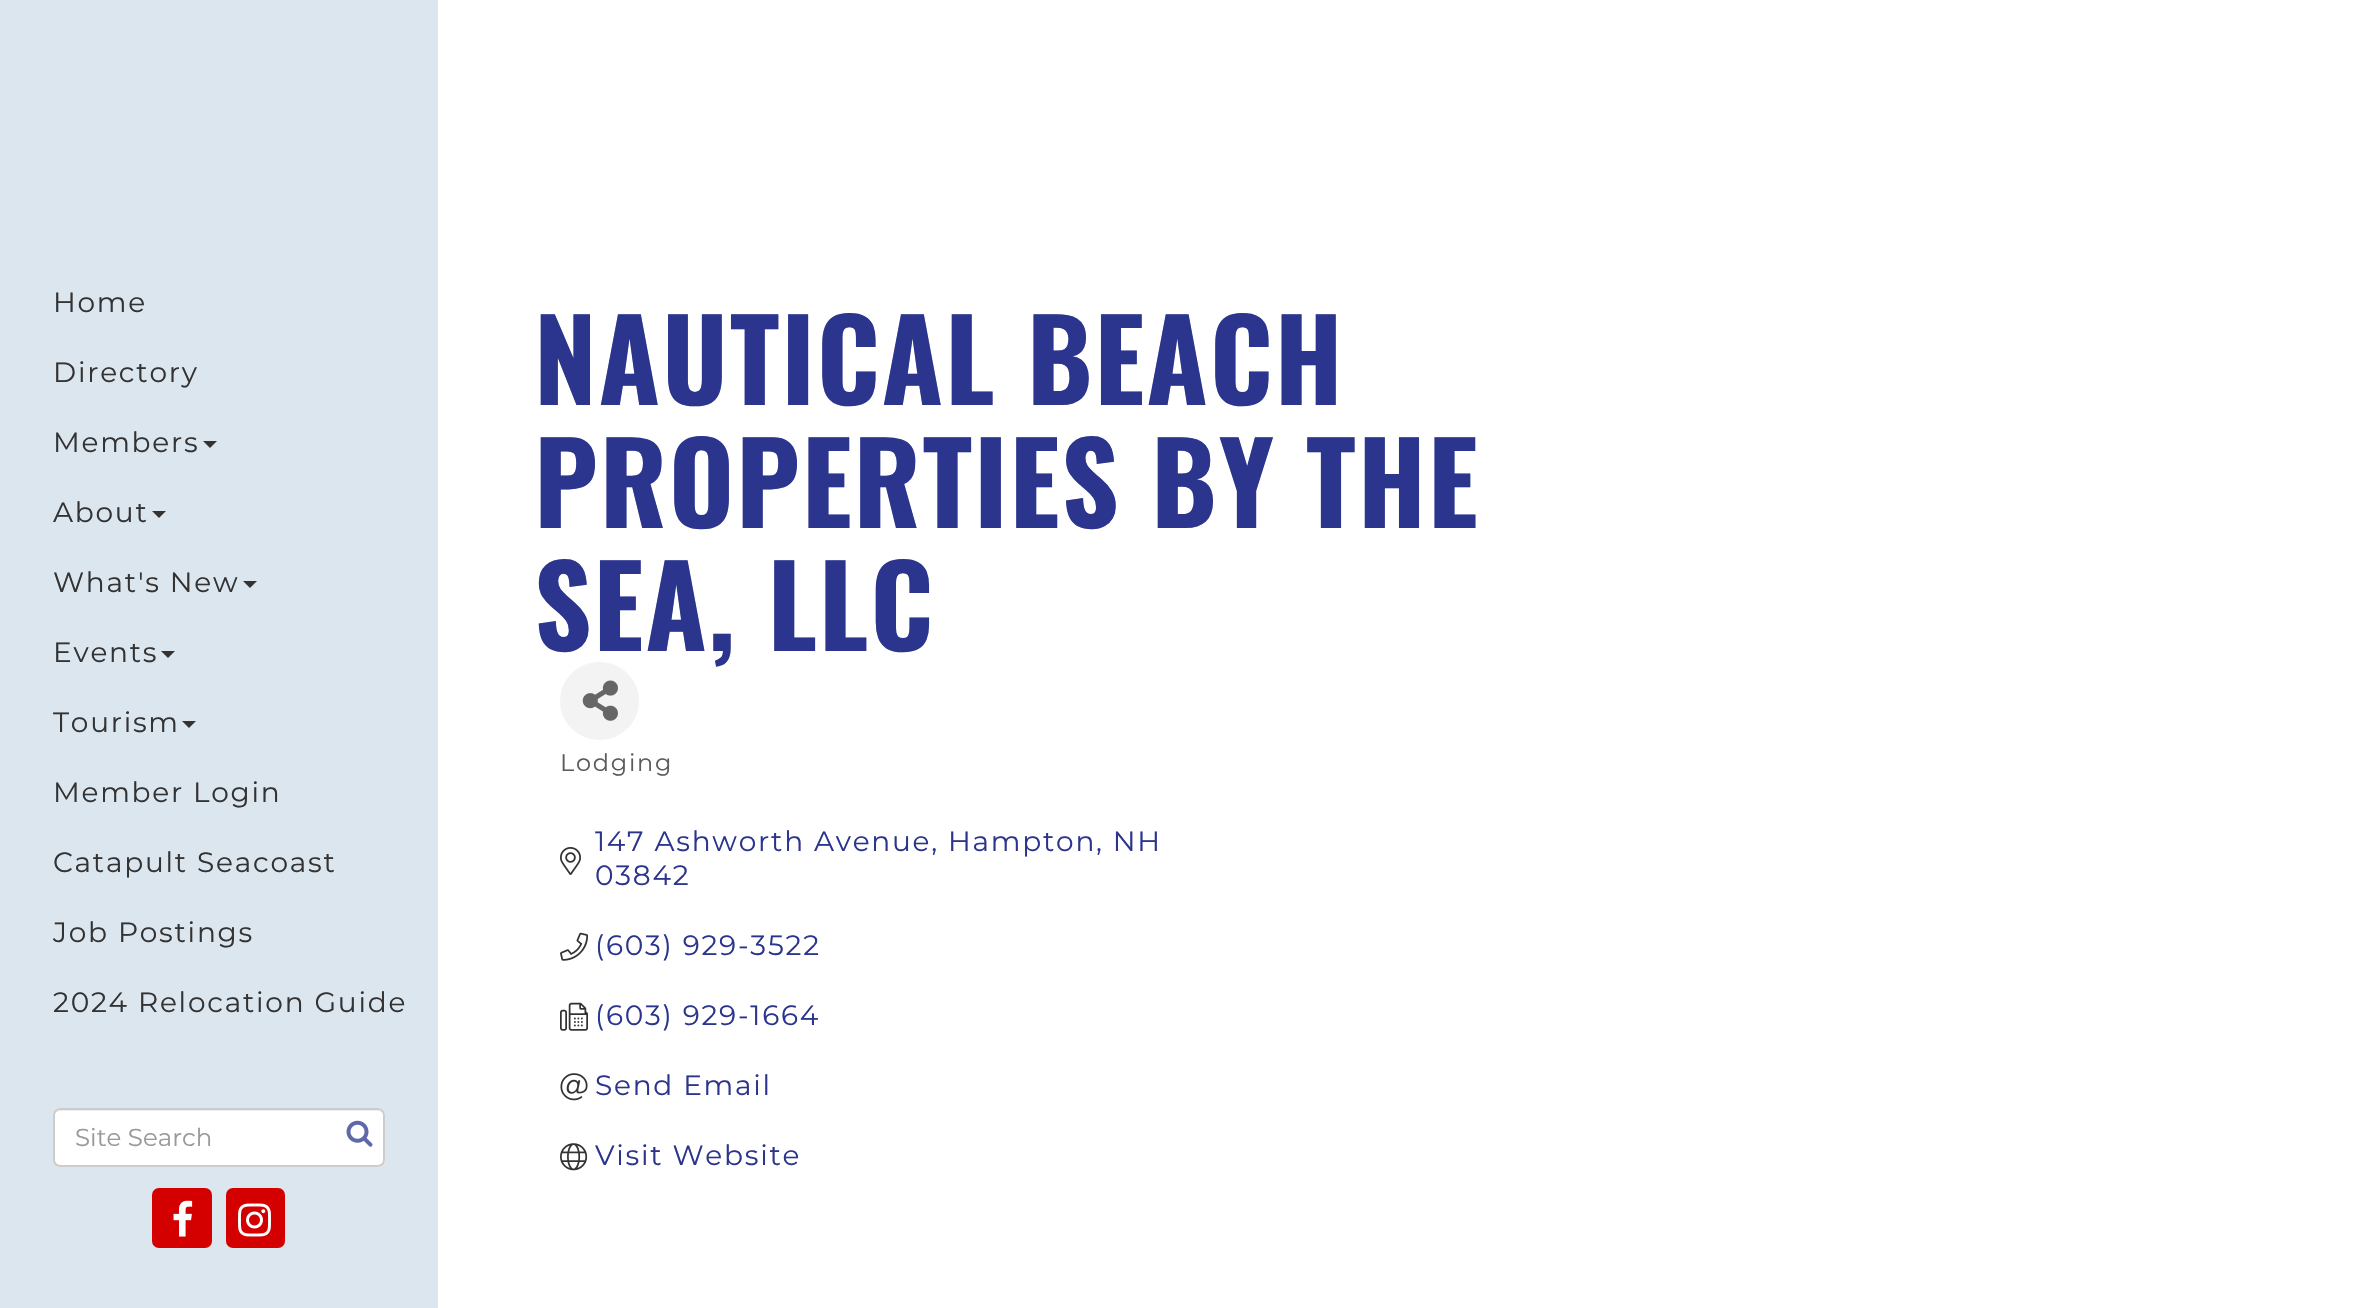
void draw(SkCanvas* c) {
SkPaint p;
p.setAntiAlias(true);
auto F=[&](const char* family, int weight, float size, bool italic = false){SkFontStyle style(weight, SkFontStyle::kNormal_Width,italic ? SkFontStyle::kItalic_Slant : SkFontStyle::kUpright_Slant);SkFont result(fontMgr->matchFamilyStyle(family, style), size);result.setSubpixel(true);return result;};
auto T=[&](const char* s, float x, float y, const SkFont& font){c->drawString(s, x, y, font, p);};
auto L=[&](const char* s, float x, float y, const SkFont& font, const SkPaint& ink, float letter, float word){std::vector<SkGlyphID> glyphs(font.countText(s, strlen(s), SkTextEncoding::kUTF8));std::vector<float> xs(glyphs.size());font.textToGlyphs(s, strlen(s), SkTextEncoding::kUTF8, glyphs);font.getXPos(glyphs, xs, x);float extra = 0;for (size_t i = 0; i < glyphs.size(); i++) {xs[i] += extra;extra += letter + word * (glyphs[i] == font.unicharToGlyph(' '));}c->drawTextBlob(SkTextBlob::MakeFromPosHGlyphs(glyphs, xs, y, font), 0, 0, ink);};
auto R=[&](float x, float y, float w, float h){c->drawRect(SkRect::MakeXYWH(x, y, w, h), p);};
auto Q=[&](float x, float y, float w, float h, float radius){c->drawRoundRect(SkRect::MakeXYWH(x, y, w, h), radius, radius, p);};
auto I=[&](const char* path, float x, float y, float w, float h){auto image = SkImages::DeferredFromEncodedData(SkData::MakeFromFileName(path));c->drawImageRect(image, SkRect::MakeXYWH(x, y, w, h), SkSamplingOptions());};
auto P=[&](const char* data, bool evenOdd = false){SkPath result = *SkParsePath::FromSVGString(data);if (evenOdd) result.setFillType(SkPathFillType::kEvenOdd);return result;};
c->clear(0xffffffff);
p.setColor(0xffdce6ef);
R(0,0,438,1308);
auto f1 = F("Montserrat",400,28);
p.setColor(0xff333333);
L("Home",53,312,f1,p,1.75,0);
L("Directory",53,382,f1,p,1.75,0);
L("Members",53,452,f1,p,1.75,0);
c->drawPath(P("M203 441h14l-7 7z"),p);
L("About",53,522,f1,p,1.75,0);
c->drawPath(P("M152 511h14l-7 7z"),p);
L("What's New",53,592,f1,p,1.75,0);
c->drawPath(P("M243 581h14l-7 7z"),p);
L("Events",53,662,f1,p,1.75,0);
c->drawPath(P("M161 651h14l-7 7z"),p);
L("Tourism",53,732,f1,p,1.75,0);
c->drawPath(P("M182 721h14l-7 7z"),p);
L("Member Login",53,802,f1,p,1.75,0);
L("Catapult Seacoast",53,872,f1,p,1.75,0);
L("Job Postings",53,942,f1,p,1.75,0);
L("2024 Relocation Guide",53,1012,f1,p,1.75,0);
p.setColor(0xffffffff);
Q(53,1108,332,59,7);
p.setColor(0xffececec);
c->drawPath(P("M60 1111h318c3 0 5 3 5 5c0-3-2-6-5-6h-319c-3 0-5 3-5 6c0-2 3-5 6-5z"),p);
p.setStroke(true);
p.setStrokeWidth(2);
p.setColor(0xffcccccc);
c->drawRoundRect(SkRect::MakeXYWH(54,1109,330,57),6,6,p);
auto f2 = F("Montserrat",400,24.5);
p.setStroke(false);
p.setColor(0xff999999);
T("Site Search",75,1146,f2);
I("1.png",346,1120,27,27);
p.setColor(0xffd40000);
c->drawRoundRect(SkRect::MakeXYWH(153,1189,58,58),6,6,p);
p.setStroke(true);
c->drawRoundRect(SkRect::MakeXYWH(153,1189,58,58),6,6,p);
I("2.png",173,1200,20,37);
p.setStroke(false);
c->drawRoundRect(SkRect::MakeXYWH(227,1189,57,58),6,6,p);
p.setStroke(true);
c->drawRoundRect(SkRect::MakeXYWH(227,1189,57,58),6,6,p);
I("3.png",238,1203,33,34);
auto f3 = F("Oswald",700,112);
p.setStroke(false);
p.setColor(0xff2b358d);
L("NAUTICAL BEACH",534,405,f3,p,1.75,0);
L("PROPERTIES BY THE",534,528,f3,p,1.75,0);
L("SEA, LLC",534,651,f3,p,1.75,0);
p.setColor(0xfff3f3f3);
Q(560,662,79,78,39);
I("4.png",582,680,36,41);
auto f4 = F("Montserrat",400,24);
p.setColor(0xff5c5c5c);
L("Lodging",560,771,f4,p,1.75,0);
p.setColor(0xff2b358d);
L("147 Ashworth Avenue, Hampton, NH",595,851,f1,p,1.75,0);
I("5.png",560,847,21,28);
L("03842",595,885,f1,p,1.75,0);
I("6.png",560,932,28,29);
L("(603) 929-3522",595,955,f1,p,1.75,0);
I("7.png",560,1002,28,29);
L("(603) 929-1664",595,1025,f1,p,1.75,0);
I("8.png",560,1073,28,28);
L("Send Email",595,1095,f1,p,1.75,0);
I("9.png",560,1143,28,28);
L("Visit Website",595,1165,f1,p,1.75,0);
}
